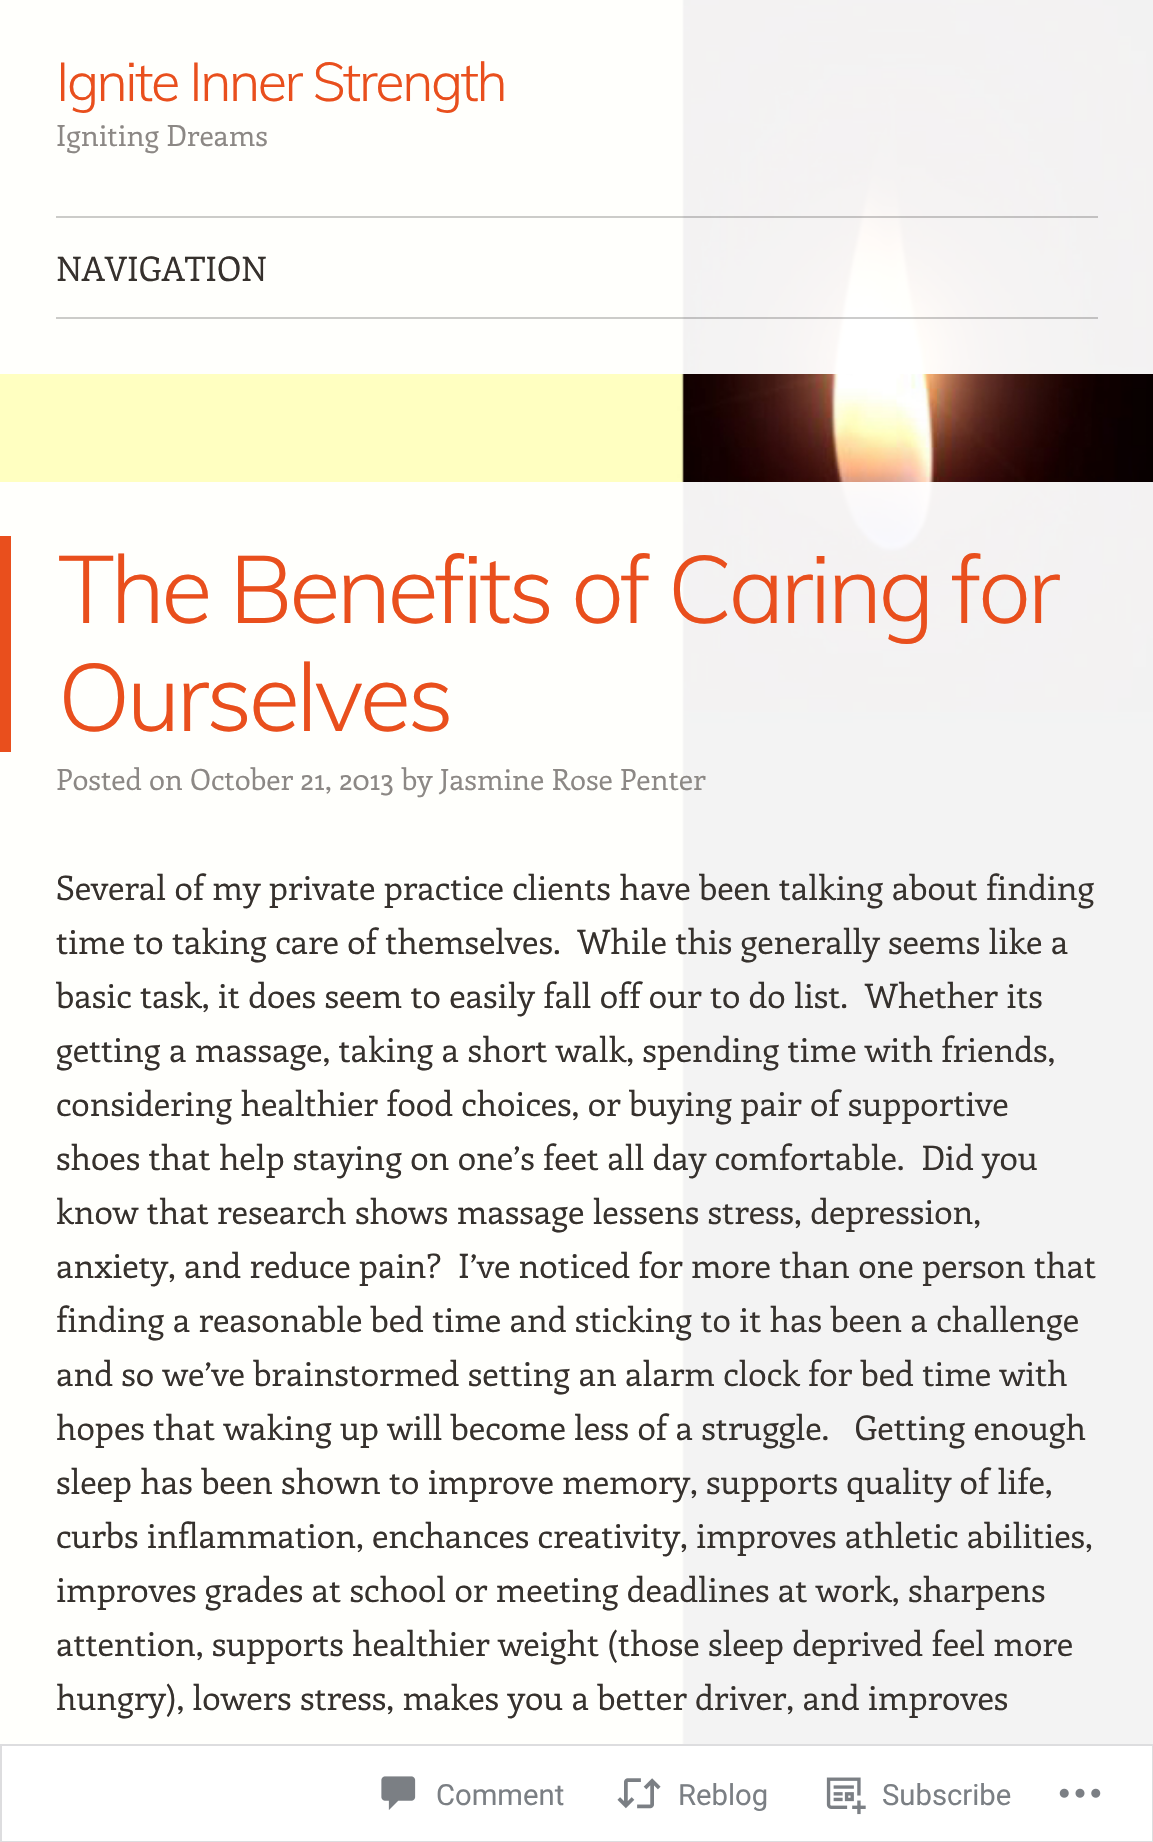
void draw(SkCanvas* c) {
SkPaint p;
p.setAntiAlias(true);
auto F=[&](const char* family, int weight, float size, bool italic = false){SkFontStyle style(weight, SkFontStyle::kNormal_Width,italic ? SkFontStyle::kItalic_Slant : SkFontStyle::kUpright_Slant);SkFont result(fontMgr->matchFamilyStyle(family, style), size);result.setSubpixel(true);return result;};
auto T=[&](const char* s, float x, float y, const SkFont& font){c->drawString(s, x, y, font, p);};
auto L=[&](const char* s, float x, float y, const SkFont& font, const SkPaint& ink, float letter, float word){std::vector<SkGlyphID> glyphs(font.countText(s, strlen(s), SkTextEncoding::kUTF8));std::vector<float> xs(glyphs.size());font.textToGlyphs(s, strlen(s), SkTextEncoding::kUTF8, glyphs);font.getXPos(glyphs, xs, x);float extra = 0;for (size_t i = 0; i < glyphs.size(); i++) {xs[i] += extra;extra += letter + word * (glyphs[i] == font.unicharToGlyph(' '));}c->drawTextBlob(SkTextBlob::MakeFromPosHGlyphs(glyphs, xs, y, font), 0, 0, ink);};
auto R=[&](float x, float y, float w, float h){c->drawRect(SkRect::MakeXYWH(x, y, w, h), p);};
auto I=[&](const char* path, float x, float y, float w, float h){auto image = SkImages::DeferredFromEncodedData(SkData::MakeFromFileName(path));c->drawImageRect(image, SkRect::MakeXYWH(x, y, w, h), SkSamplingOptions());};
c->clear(0xffffffff);
I("1.png",0,0,1153,1842);
p.setColor(0xf2ffffff);
R(0,0,1153,374);
auto f1 = F("Muli",300,54);
p.setColor(0xffe94f1d);
L("Ignite Inner Strength",56,101,f1,p,-2.4,0);
auto f2 = F("Enriqueta",400,29.25);
p.setColor(0xff8c8885);
T("Igniting Dreams",56,146,f2);
p.setColor(0x33000000);
R(56,216,1042,2);
R(56,317,1042,2);
auto f3 = F("Enriqueta",400,33.75);
p.setColor(0xff36312d);
T("NAVIGATION",56,281,f3);
p.setColor(0xf2ffffff);
R(0,482,1153,1360);
p.setColor(0xffe94f1d);
R(0,536,11,216);
auto f4 = F("Muli",300,94.5);
L("The Benefits of Caring for",58,623,f4,p,-3.75,0);
L("Ourselves",58,731,f4,p,-3.75,0);
p.setColor(0xff8c8885);
T("Posted on October 21, 2013 by Jasmine Rose Penter",56,790,f2);
p.setColor(0xff36312d);
T("Several of my private practice clients have been talking about finding",56,900,f3);
T("time to taking care of themselves.  While this generally seems like a",56,954,f3);
T("basic task, it does seem to easily fall off our to do list.  Whether its",56,1008,f3);
T("getting a massage, taking a short walk, spending time with friends,",56,1062,f3);
T("considering healthier food choices, or buying pair of supportive",56,1116,f3);
T("shoes that help staying on one’s feet all day comfortable.  Did you",56,1170,f3);
T("know that research shows massage lessens stress, depression,",56,1224,f3);
T("anxiety, and reduce pain?  I’ve noticed for more than one person that",56,1278,f3);
T("finding a reasonable bed time and sticking to it has been a challenge",56,1332,f3);
T("and so we’ve brainstormed setting an alarm clock for bed time with",56,1386,f3);
T("hopes that waking up will become less of a struggle.   Getting enough",56,1440,f3);
T("sleep has been shown to improve memory, supports quality of life,",56,1494,f3);
T("curbs inflammation, enchances creativity, improves athletic abilities,",56,1548,f3);
T("improves grades at school or meeting deadlines at work, sharpens",56,1602,f3);
T("attention, supports healthier weight (those sleep deprived feel more",56,1656,f3);
T("hungry), lowers stress, makes you a better driver, and improves",56,1710,f3);
p.setColor(0xfaffffff);
R(0,1744,1153,98);
p.setStroke(true);
p.setStrokeWidth(2);
p.setColor(0xfadcdcde);
c->drawRect(SkRect::MakeXYWH(1,1745,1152,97),p);
I("2.png",381,1776,35,34);
auto f5 = F("Roboto",400,29.25);
p.setStroke(false);
p.setColor(0xff7b7f84);
T("Comment",436,1805,f5);
I("3.png",617,1778,44,31);
T("Reblog",678,1805,f5);
I("4.png",826,1777,40,38);
T("Subscribe",882,1805,f5);
I("5.png",1059,1788,42,10);
}
